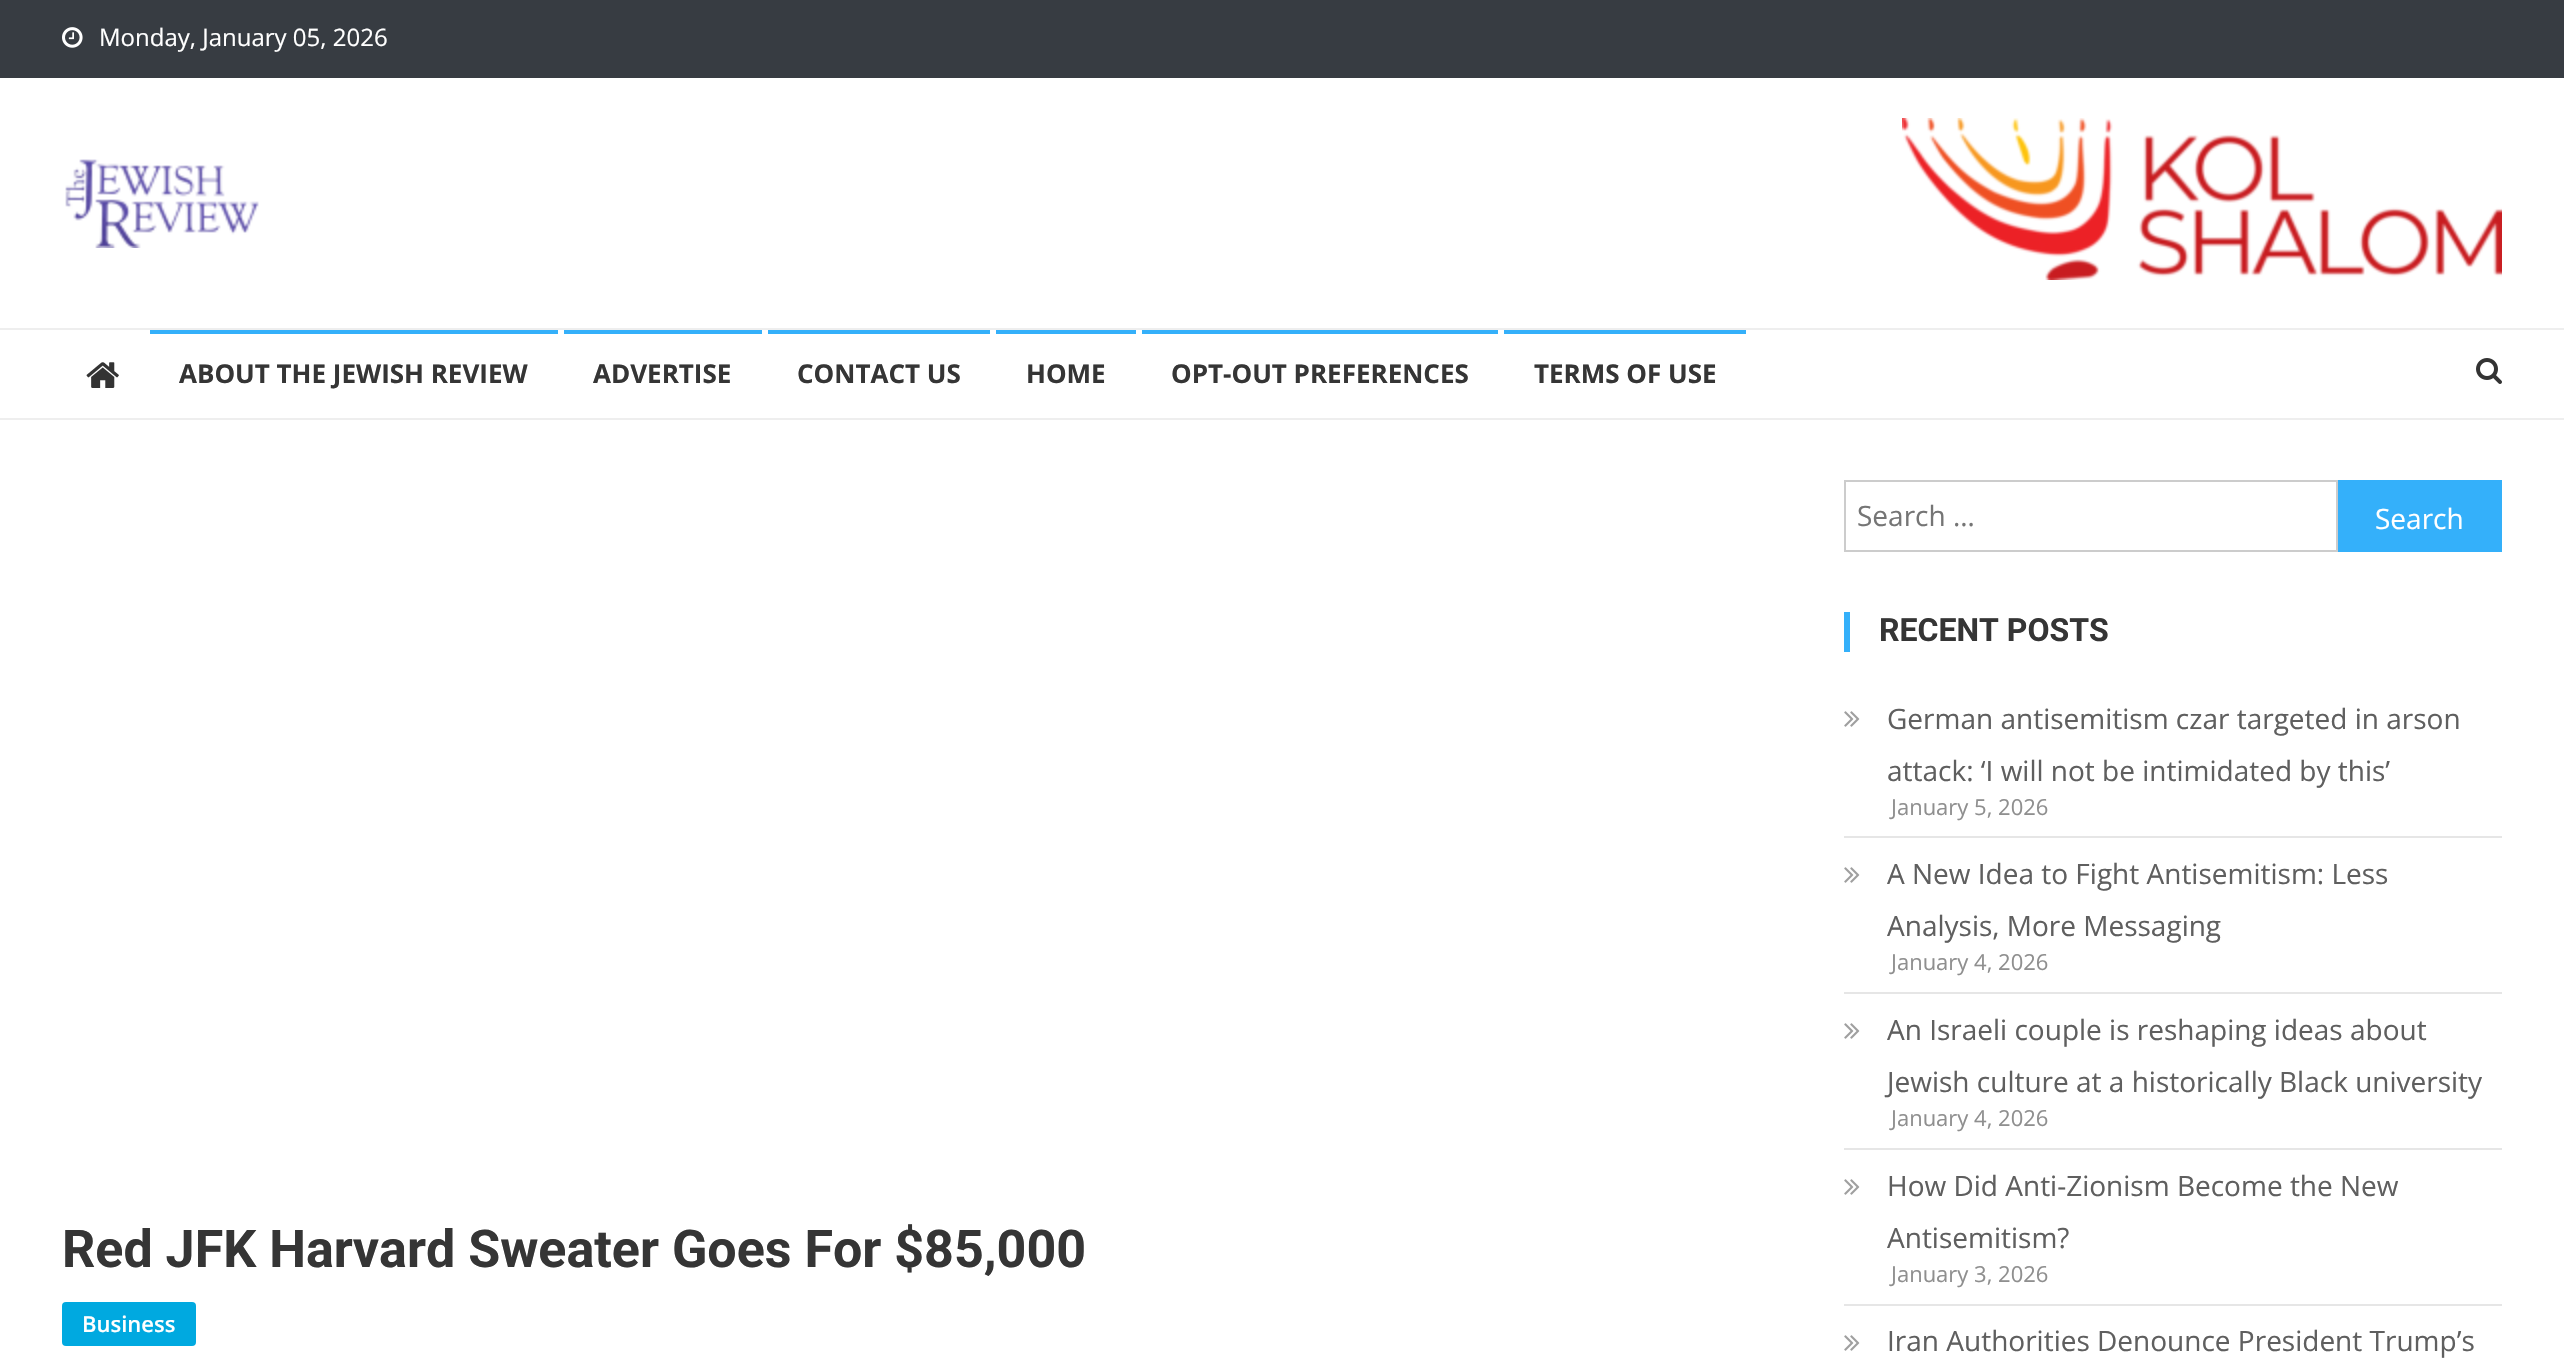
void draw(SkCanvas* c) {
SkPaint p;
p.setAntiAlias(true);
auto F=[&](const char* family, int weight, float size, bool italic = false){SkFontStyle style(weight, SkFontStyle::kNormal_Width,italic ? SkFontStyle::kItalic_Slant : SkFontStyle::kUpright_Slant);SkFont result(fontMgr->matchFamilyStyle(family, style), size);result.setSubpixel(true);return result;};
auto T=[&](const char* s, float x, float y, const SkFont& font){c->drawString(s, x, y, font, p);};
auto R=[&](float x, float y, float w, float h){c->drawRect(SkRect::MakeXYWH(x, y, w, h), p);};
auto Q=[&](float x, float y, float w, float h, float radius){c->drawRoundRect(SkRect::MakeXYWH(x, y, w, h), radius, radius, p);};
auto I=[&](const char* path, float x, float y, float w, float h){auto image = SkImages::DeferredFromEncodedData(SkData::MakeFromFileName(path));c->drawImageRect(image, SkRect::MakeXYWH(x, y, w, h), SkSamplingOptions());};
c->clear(0xffffffff);
p.setColor(0xff373c42);
R(0,0,2564,78);
I("1.png",62,27,21,21);
auto f1 = F("Open Sans",400,24);
p.setColor(0xffffffff);
T("Monday, January 05, 2026",99,46,f1);
I("2.png",65,159,194,89);
I("3.png",1902,118,600,162);
p.setColor(0xffeeeeee);
R(0,328,2564,2);
R(0,418,2564,2);
I("4.png",86,362,33,26);
p.setColor(0xff34b0fa);
R(150,330,408,4);
auto f2 = F("Open Sans",700,26);
p.setColor(0xff353535);
T("ABOUT THE JEWISH REVIEW",179,383,f2);
p.setColor(0xff34b0fa);
R(564,330,198,4);
p.setColor(0xff353535);
T("ADVERTISE",593,383,f2);
p.setColor(0xff34b0fa);
R(768,330,222,4);
p.setColor(0xff353535);
T("CONTACT US",797,383,f2);
p.setColor(0xff34b0fa);
R(996,330,140,4);
p.setColor(0xff353535);
T("HOME",1026,383,f2);
p.setColor(0xff34b0fa);
R(1142,330,356,4);
p.setColor(0xff353535);
T("OPT-OUT PREFERENCES",1171,383,f2);
p.setColor(0xff34b0fa);
R(1504,330,242,4);
p.setColor(0xff353535);
T("TERMS OF USE",1534,383,f2);
I("5.png",2476,358,26,26);
auto f3 = F("Roboto",700,52);
T("Red JFK Harvard Sweater Goes For $85,000",62,1267,f3);
p.setColor(0xff00a9e0);
Q(62,1302,134,44,4);
auto f4 = F("Open Sans",600,22);
p.setColor(0xffffffff);
T("Business",82,1332,f4);
p.setStroke(true);
p.setStrokeWidth(2);
p.setColor(0xffcccccc);
c->drawRect(SkRect::MakeXYWH(1845,481,492,70),p);
auto f5 = F("Open Sans",400,28);
p.setStroke(false);
p.setColor(0xff757575);
T("Search …",1857,526,f5);
p.setColor(0xff34b0fa);
R(2338,480,164,72);
p.setColor(0xffffffff);
T("Search",2375,529,f5);
p.setColor(0xff34b0fa);
R(1844,612,6,40);
auto f6 = F("Roboto",700,32);
p.setColor(0xff353535);
T("RECENT POSTS",1879,641,f6);
p.setColor(0xffe6e6e6);
R(1844,836,658,2);
I("6.png",1844,711,16,16);
p.setColor(0xff5f5f5f);
T("German antisemitism czar targeted in arson",1887,729,f5);
T("attack: ‘I will not be intimidated by this’",1887,781,f5);
auto f7 = F("Open Sans",400,22);
p.setColor(0xff8f8f8f);
T("January 5, 2026",1891,815,f7);
p.setColor(0xffe6e6e6);
R(1844,992,658,2);
I("6.png",1844,867,16,16);
p.setColor(0xff5f5f5f);
T("A New Idea to Fight Antisemitism: Less",1887,884,f5);
T("Analysis, More Messaging",1887,936,f5);
p.setColor(0xff8f8f8f);
T("January 4, 2026",1891,970,f7);
p.setColor(0xffe6e6e6);
R(1844,1148,658,2);
I("6.png",1844,1023,16,16);
p.setColor(0xff5f5f5f);
T("An Israeli couple is reshaping ideas about",1887,1040,f5);
T("Jewish culture at a historically Black university",1887,1092,f5);
p.setColor(0xff8f8f8f);
T("January 4, 2026",1891,1126,f7);
p.setColor(0xffe6e6e6);
R(1844,1304,658,2);
I("6.png",1844,1179,16,16);
p.setColor(0xff5f5f5f);
T("How Did Anti-Zionism Become the New",1887,1196,f5);
T("Antisemitism?",1887,1248,f5);
p.setColor(0xff8f8f8f);
T("January 3, 2026",1891,1282,f7);
I("6.png",1844,1335,16,16);
p.setColor(0xff5f5f5f);
T("Iran Authorities Denounce President Trump’s",1887,1351,f5);
}
